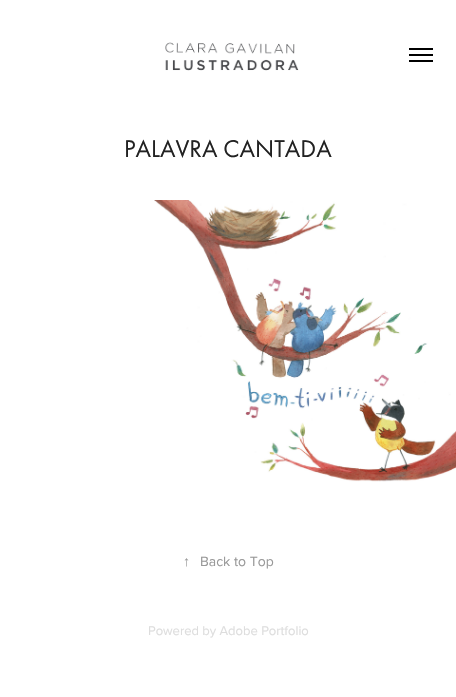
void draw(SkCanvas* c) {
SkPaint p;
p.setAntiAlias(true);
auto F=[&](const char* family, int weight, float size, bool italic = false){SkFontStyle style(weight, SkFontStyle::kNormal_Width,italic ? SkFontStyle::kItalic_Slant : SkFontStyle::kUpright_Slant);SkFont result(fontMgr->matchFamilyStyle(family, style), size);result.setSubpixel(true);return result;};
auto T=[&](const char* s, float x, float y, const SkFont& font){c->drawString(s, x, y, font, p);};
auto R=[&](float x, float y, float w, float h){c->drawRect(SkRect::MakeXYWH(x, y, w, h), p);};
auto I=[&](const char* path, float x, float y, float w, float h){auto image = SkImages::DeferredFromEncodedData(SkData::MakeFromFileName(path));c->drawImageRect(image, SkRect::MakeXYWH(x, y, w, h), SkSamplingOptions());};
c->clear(0xffffffff);
I("1.png",165,42,134,29);
p.setColor(0xff000000);
R(409,48,24,2);
R(409,54,24,2);
R(409,60,24,2);
auto f1 = F("Futura PT",400,25);
p.setColor(0xff222222);
T("PALAVRA CANTADA",124,157,f1);
I("2.png",154,200,302,282);
auto f2 = F("Liberation Serif",400,14);
p.setColor(0xff999999);
T("↑",183,566,f2);
auto f3 = F("Proxima Nova",400,14);
T("Back to Top",200,566,f3);
auto f4 = F("Proxima Nova",400,13);
p.setColor(0xffdddddd);
T("Powered by Adobe Portfolio",148,635,f4);
}
